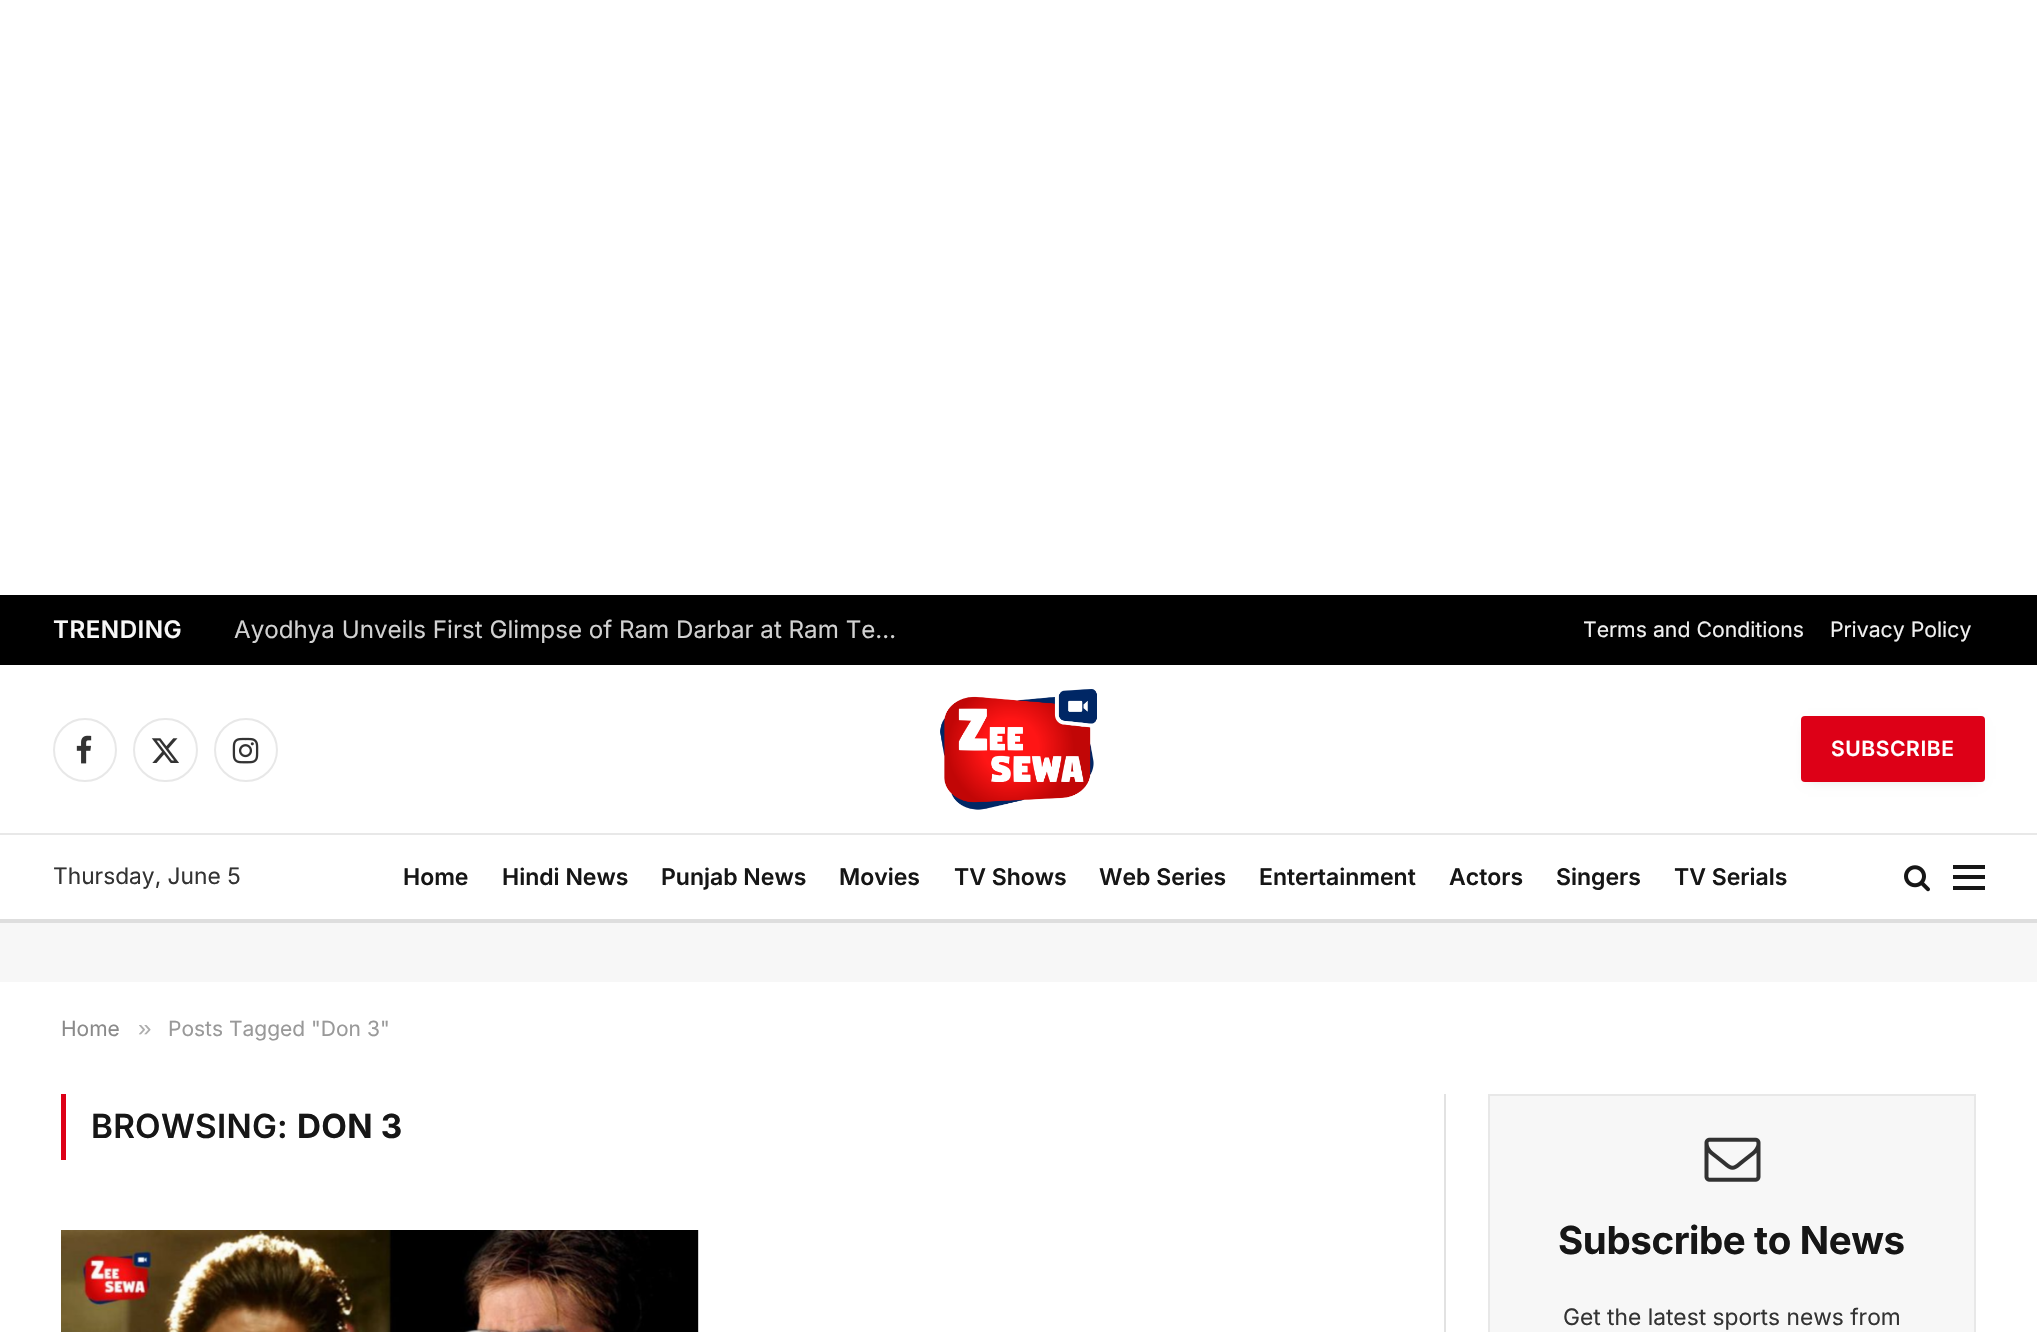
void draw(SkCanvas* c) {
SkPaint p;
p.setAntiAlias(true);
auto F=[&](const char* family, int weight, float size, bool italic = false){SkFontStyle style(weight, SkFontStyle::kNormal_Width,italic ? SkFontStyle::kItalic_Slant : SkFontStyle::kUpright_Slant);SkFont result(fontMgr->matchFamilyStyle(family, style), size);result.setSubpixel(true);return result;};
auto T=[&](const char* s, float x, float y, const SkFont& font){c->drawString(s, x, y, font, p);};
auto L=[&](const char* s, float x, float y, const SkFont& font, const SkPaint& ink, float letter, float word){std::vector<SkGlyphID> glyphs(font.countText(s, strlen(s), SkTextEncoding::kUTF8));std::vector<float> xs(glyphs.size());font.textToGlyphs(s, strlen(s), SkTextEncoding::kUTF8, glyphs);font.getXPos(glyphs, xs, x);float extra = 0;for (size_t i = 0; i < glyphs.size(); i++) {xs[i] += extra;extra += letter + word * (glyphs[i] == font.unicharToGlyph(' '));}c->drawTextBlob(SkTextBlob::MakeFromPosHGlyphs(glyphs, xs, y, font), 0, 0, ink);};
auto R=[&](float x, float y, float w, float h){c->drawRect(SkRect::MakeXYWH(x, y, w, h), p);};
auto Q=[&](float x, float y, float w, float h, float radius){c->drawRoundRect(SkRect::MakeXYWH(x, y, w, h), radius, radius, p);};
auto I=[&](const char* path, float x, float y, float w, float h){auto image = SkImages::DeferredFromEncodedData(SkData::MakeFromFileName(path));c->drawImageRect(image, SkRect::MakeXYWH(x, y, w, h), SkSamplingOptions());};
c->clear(0xffffffff);
p.setColor(0xff000000);
R(0,595,2037,70);
auto f1 = F("Inter",600,24.15);
p.setColor(0xfff7f7f7);
L("TRENDING",53,638,f1,p,.5,0);
auto f2 = F("Inter",400,24.15);
p.setColor(0xffd1d1d1);
T("Ayodhya Unveils First Glimpse of Ram Darbar at Ram Te…",234,638,f2);
auto f3 = F("Inter",400,21.25);
p.setColor(0xfff0f0f0);
T("Terms and Conditions",1583,637,f3);
T("Privacy Policy",1830,637,f3);
p.setStroke(true);
p.setStrokeWidth(2);
p.setColor(0xffe8e8e8);
c->drawCircle(85,750,31,p);
I("1.png",76,735,16,29);
c->drawRoundRect(SkRect::MakeXYWH(134,719,63,62),31,31,p);
I("2.png",151,738,28,25);
c->drawCircle(246,750,31,p);
I("3.png",232,737,27,27);
I("4.png",940,689,157,121);
p.setStroke(false);
p.setColor(0x29000000);
p.setMaskFilter(SkMaskFilter::MakeBlur(kNormal_SkBlurStyle, 6));
c->drawRect(SkRect::MakeXYWH(1808,726,170,53),p);
p.setMaskFilter(nullptr);
p.setColor(0xffdd0017);
Q(1801,716,184,66,4);
auto f4 = F("Inter",600,21);
p.setColor(0xffffffff);
L("SUBSCRIBE",1831,756,f4,p,.6,0);
p.setColor(0xffe8e8e8);
R(0,833,2037,2);
p.setColor(0xffdedede);
R(0,919,2037,4);
auto f5 = F("Inter",400,22.75);
p.setColor(0xff333333);
T("Thursday, June 5",53,884,f5);
auto f6 = F("Inter",600,23);
p.setColor(0xff161616);
T("Home",403,885,f6);
T("Hindi News",502,885,f6);
T("Punjab News",661,885,f6);
T("Movies",839,885,f6);
T("TV Shows",954,885,f6);
T("Web Series",1099,885,f6);
T("Entertainment",1259,885,f6);
T("Actors",1449,885,f6);
T("Singers",1556,885,f6);
T("TV Serials",1674,885,f6);
I("5.png",1904,865,26,27);
R(1953,886,32,4);
R(1953,865,32,4);
R(1953,875,32,4);
p.setColor(0xfff7f7f7);
R(0,923,2037,59);
auto f7 = F("Inter",400,21);
p.setColor(0xff8a8a8a);
T("Home",61,1036,f7);
auto f8 = F("Liberation Sans",400,24);
p.setColor(0xffadadad);
T("»",138,1036,f8);
p.setColor(0xff999999);
T("Posts Tagged \"Don 3\"",168,1036,f7);
p.setColor(0xffdd0017);
R(61,1094,5,66);
auto f9 = F("Inter",600,33.25);
p.setColor(0xff161616);
L("BROWSING:",91,1138,f9,p,.25,0);
auto f10 = F("Inter",700,33.25);
L("DON 3",297,1138,f10,p,.25,0);
I("6.png",61,1230,638,102);
p.setColor(0xffe2e2e2);
R(1444,1094,2,238);
p.setColor(0xfff7f7f7);
c->drawRect(SkRect::MakeXYWH(1489,1095,486,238),p);
p.setStroke(true);
p.setColor(0xffe8e8e8);
c->drawRect(SkRect::MakeXYWH(1489,1095,486,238),p);
I("7.png",1704,1137,57,45);
auto f11 = F("Inter",700,38.5);
p.setStroke(false);
p.setColor(0xff161616);
L("Subscribe to News",1558,1254,f11,p,-.4,0);
p.setColor(0xff333333);
T("Get the latest sports news from",1563,1325,f5);
}
